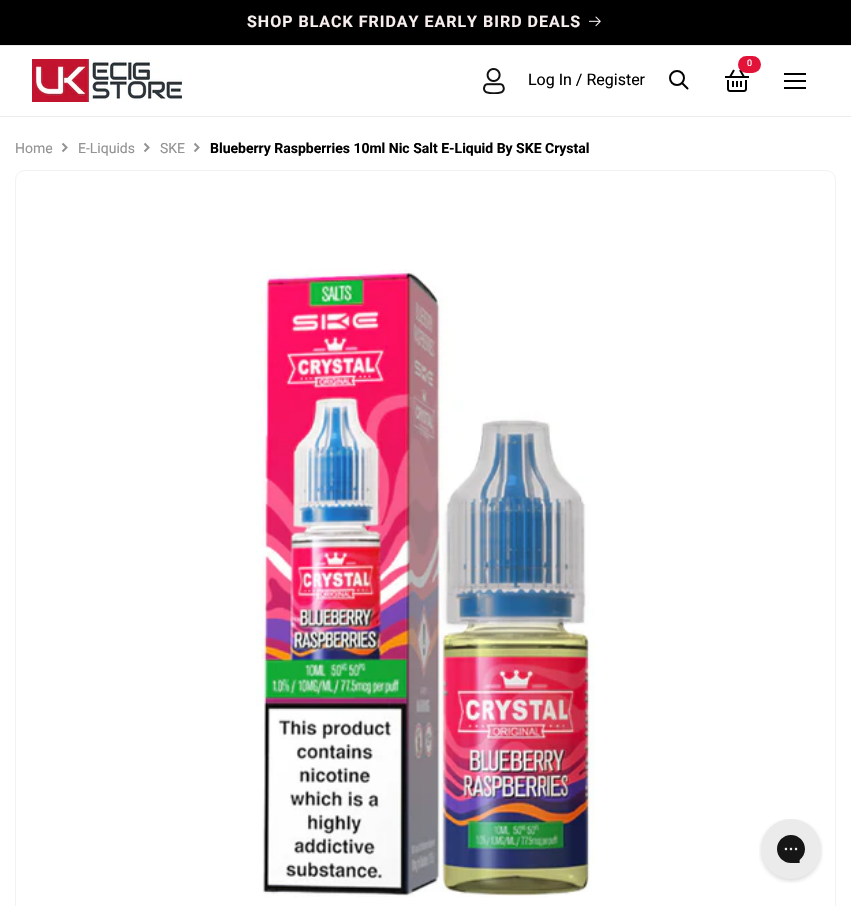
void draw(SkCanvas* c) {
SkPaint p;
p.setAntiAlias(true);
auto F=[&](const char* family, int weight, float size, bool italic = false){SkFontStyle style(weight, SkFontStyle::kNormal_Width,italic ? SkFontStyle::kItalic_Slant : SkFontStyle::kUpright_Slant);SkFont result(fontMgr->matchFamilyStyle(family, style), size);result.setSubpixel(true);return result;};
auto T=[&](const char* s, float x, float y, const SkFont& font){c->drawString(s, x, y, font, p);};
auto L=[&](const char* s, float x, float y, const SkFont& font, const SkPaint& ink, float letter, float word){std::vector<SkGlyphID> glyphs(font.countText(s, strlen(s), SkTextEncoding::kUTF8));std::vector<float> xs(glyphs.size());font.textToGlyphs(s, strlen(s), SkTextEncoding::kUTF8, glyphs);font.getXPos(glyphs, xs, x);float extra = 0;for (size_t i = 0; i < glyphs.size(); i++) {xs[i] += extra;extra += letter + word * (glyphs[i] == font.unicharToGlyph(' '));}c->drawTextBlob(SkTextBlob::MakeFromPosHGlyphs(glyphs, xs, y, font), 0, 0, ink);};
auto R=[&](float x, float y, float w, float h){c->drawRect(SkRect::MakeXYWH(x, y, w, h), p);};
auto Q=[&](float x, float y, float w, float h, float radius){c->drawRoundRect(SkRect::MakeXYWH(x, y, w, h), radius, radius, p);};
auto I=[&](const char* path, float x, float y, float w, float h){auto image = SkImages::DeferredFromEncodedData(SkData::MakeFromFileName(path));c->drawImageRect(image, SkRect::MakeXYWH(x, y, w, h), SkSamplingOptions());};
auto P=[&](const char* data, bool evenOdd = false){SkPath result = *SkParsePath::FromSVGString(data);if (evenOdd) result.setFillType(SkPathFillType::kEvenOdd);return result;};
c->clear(0xffffffff);
p.setColor(0xffebebeb);
R(0,45,851,1);
p.setColor(0xff000000);
R(0,0,851,45);
auto f1 = F("Roboto",700,16);
p.setColor(0xfff7eeee);
L("SHOP BLACK FRIDAY EARLY BIRD DEALS",247,27,f1,p,1,0);
I("1.png",589,16,12,11);
I("2.png",32,59,150,43);
I("3.png",725,69,24,23);
p.setColor(0xffe31239);
Q(738,56,23,17,8.5);
auto f2 = F("Roboto",400,9);
p.setColor(0xffffffff);
T("0",747,66,f2);
I("4.png",483,68,22,26);
auto f3 = F("Roboto",400,16);
p.setColor(0xff000000);
T("Log In / Register",528,85,f3);
p.setStroke(true);
p.setStrokeWidth(2);
p.setStrokeCap(SkPaint::kRound_Cap);
p.setStrokeJoin(SkPaint::kRound_Join);
c->drawPath(P("M687.5 88.5l-5.5-5.5"),p);
p.setStrokeCap(SkPaint::kButt_Cap);
p.setStrokeJoin(SkPaint::kMiter_Join);
c->drawCircle(677,78,7,p);
I("5.png",784,73,22,16);
p.setStroke(false);
p.setColor(0xffececed);
R(0,116,851,1);
auto f4 = F("Roboto",400,14);
p.setColor(0xff939393);
T("Home",15,153,f4);
p.setStroke(true);
c->drawPath(P("M62.5 143.5l4 4l-4 4"),p);
p.setStroke(false);
T("E-Liquids",78,153,f4);
T("SKE",160,153,f4);
auto f5 = F("Roboto",700,14);
p.setColor(0xff000000);
T("Blueberry Raspberries 10ml Nic Salt E-Liquid By SKE Crystal",210,153,f5);
p.setStroke(true);
p.setColor(0xff939393);
c->drawPath(P("M144.5 143.5l4 4l-4 4m50-8l4 4l-4 4"),p);
p.setStrokeWidth(1);
p.setColor(0xfff2f2f2);
c->drawRoundRect(SkRect::MakeXYWH(15.5,170.5,820,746),9.5,9.5,p);
I("6.png",256,269,339,628);
I("7.png",759,819,64,64);
}
